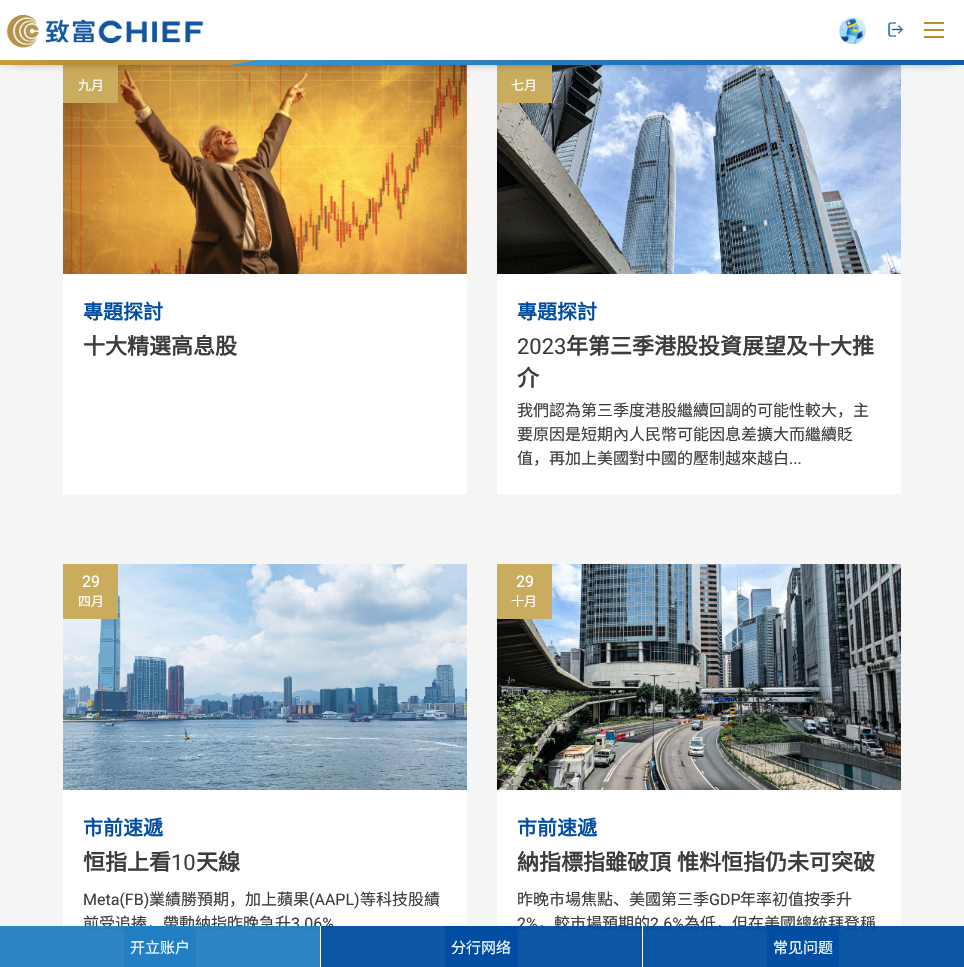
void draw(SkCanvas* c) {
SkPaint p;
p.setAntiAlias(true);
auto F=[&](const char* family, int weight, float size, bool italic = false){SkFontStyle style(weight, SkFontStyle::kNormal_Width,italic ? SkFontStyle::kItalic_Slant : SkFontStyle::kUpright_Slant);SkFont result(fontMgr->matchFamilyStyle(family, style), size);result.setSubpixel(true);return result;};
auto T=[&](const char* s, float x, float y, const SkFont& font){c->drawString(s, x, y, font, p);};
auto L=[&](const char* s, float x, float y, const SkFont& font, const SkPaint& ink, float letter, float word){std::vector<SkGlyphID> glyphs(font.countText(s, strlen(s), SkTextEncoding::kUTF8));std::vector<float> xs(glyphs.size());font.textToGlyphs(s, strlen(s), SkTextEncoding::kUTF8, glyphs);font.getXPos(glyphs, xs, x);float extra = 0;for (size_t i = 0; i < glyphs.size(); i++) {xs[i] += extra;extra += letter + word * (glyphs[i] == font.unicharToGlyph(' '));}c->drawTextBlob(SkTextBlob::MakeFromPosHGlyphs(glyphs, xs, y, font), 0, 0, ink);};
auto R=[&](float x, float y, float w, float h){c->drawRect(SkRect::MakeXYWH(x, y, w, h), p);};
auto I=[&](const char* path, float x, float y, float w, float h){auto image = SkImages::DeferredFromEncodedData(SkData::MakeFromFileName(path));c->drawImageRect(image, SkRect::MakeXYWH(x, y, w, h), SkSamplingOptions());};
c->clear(0xfff5f5f5);
p.setColor(0xffffffff);
R(63,65,404,429);
I("5.png",63,65,404,209);
p.setColor(0xffcaac5e);
R(63,65,55,38);
I("6.png",497,65,404,209);
R(497,65,55,38);
p.setColor(0xa6000000);
p.setMaskFilter(SkMaskFilter::MakeBlur(kNormal_SkBlurStyle, 5));
c->drawRect(SkRect::MakeXYWH(12,20,940,41),p);
p.setMaskFilter(nullptr);
p.setColor(0xffffffff);
R(0,0,964,60);
I("1.png",6,14,198,34);
I("2.png",839,17,27,27);
I("3.png",888,22,15,15);
p.setColor(0xffb99128);
R(924,22,20,2);
R(924,29,20,2);
R(924,36,20,2);
I("4.png",0,60,964,5);
auto f1 = F("Noto Sans CJK SC",400,13);
p.setColor(0xffffffff);
T("九月",78,90,f1);
auto f2 = F("Noto Sans CJK SC",700,20);
p.setColor(0xff004da1);
T("專題探討",83,319,f2);
auto f3 = F("Noto Sans CJK SC",700,22);
p.setColor(0xff3c3c3c);
T("十大精選高息股",83,354,f3);
p.setColor(0xffffffff);
R(497,274,404,220);
T("七月",511,90,f1);
p.setColor(0xff004da1);
T("專題探討",517,319,f2);
auto f4 = F("Roboto",400,22);
p.setColor(0xff3c3c3c);
T("2023",517,354,f4);
T("年第三季港股投資展望及十大推",566,354,f3);
T("介",517,386,f3);
auto f5 = F("Noto Sans CJK SC",400,16);
T("我們認為第三季度港股繼續回調的可能性較大，主",517,416,f5);
T("要原因是短期內人民幣可能因息差擴大而繼續貶",517,440,f5);
T("值，再加上美國對中國的壓制越來越白",517,464,f5);
auto f6 = F("Roboto",400,16);
T("...",789,464,f6);
p.setColor(0xffffffff);
R(63,790,404,177);
I("7.png",63,564,404,226);
p.setColor(0xffcaac5e);
R(63,564,55,55);
p.setColor(0xffffffff);
T("29",82,587,f6);
T("四月",78,606,f1);
p.setColor(0xff004da1);
T("市前速遞",83,835,f2);
p.setColor(0xff3c3c3c);
T("恒指上看",83,870,f3);
T("10",171,870,f4);
T("天線",196,870,f3);
T("Meta(FB)",83,905,f6);
T("業績勝預期，加上蘋果",149,905,f5);
T("(AAPL)",309,905,f6);
T("等科技股績",360,905,f5);
T("前受追捧，帶動納指昨晚急升",83,929,f5);
T("3.06%",291,929,f6);
p.setColor(0xffffffff);
R(497,790,404,177);
I("8.png",497,564,404,226);
p.setColor(0xffcaac5e);
R(497,564,55,55);
p.setColor(0xffffffff);
T("29",516,587,f6);
T("十月",511,606,f1);
p.setColor(0xff004da1);
T("市前速遞",517,835,f2);
p.setColor(0xff3c3c3c);
L("納指標指雖破頂 惟料恒指仍未可突破",517,870,f3,p,0,1);
T("昨晚市場焦點、美國第三季",517,905,f5);
T("GDP",709,905,f6);
T("年率初值按季升",740,905,f5);
T("2%",517,929,f6);
T("，較市場預期的",538,929,f5);
T("2.6%",650,929,f6);
T("為低，但在美國總統拜登稱",684,929,f5);
p.setColor(0xf2227ec2);
R(0,926,321,41);
p.setColor(0xf2ffffff);
R(320,926,1,41);
p.setColor(0xf2227ec2);
R(124,926,72,41);
auto f7 = F("Noto Sans CJK SC",400,15);
p.setColor(0xfff4f9fc);
T("开立账户",130,953,f7);
p.setColor(0xf2004da1);
R(321,926,322,41);
p.setColor(0xf2ffffff);
R(642,926,1,41);
p.setColor(0xff014da1);
R(445,926,73,41);
p.setColor(0xfff4f9fc);
T("分行网络",451,953,f7);
p.setColor(0xf2004da1);
R(643,926,321,41);
R(767,926,72,41);
p.setColor(0xffffffff);
T("常见问题",773,953,f7);
}
